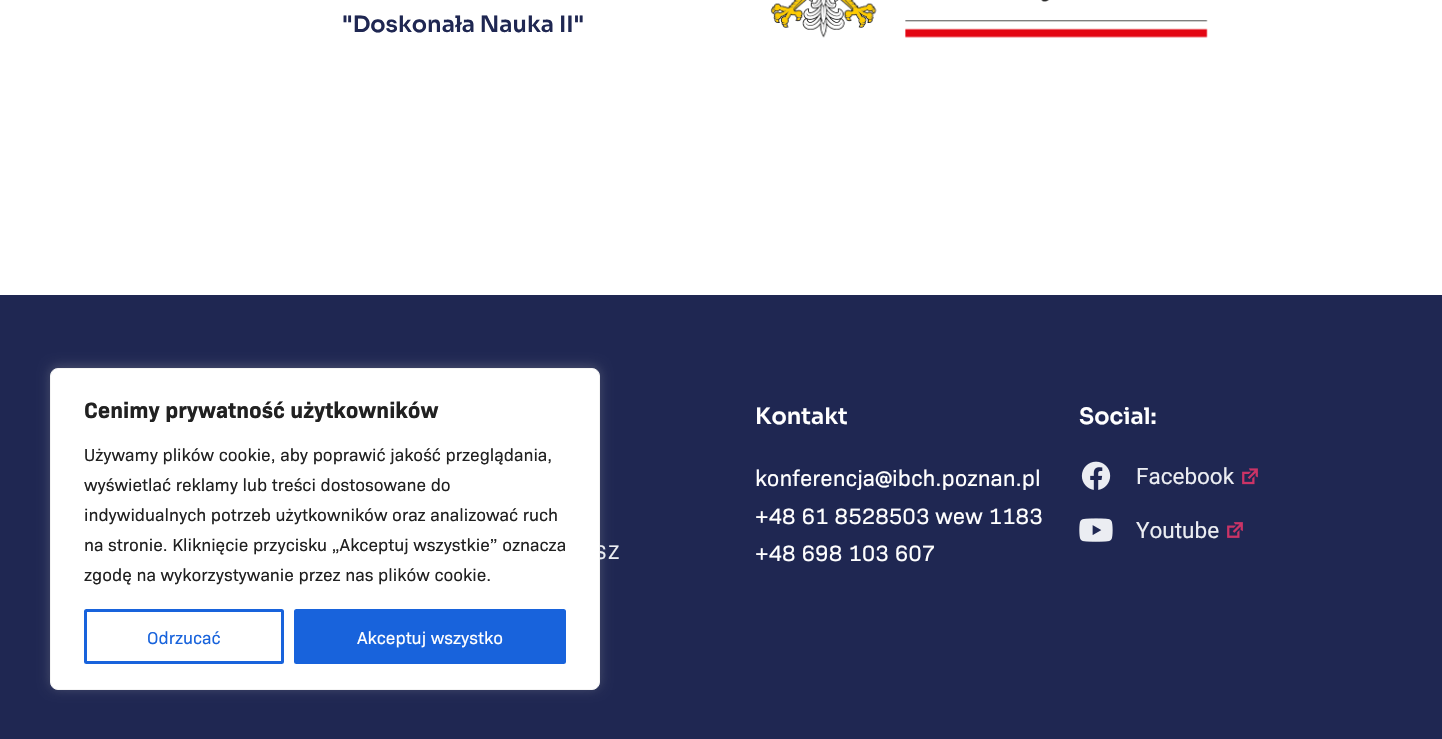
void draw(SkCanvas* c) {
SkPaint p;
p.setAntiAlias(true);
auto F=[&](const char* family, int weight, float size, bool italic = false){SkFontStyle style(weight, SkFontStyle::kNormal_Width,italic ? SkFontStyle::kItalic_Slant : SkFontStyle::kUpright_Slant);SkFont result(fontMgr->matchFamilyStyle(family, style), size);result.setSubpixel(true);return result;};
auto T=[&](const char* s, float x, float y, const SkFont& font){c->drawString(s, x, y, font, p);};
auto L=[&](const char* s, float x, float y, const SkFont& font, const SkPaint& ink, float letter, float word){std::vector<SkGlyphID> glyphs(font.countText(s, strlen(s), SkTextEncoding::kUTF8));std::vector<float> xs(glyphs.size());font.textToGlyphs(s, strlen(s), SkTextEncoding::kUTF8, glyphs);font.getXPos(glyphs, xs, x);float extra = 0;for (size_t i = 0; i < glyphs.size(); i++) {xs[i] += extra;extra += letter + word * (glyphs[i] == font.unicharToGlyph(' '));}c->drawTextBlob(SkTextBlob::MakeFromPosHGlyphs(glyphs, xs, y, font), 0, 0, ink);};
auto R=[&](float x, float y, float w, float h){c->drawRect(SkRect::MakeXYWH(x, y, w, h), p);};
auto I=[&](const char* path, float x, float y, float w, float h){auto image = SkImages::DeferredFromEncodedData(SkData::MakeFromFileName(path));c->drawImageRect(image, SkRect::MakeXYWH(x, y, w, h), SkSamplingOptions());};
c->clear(0xffffffff);
p.setColor(0xff1f2752);
R(0,295,1442,444);
p.setColor(0x4dacabab);
p.setMaskFilter(SkMaskFilter::MakeBlur(kNormal_SkBlurStyle, 6));
c->drawRoundRect(SkRect::MakeXYWH(50,366,550,323),8,8,p);
p.setMaskFilter(nullptr);
auto f1 = F("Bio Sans",400,20);
p.setColor(0xffebedf2);
L("SZ",595,559,f1,p,2,0);
p.setColor(0xffffffff);
c->drawRoundRect(SkRect::MakeXYWH(50.5,368.5,549,321),7.5,7.5,p);
p.setStroke(true);
p.setStrokeWidth(1);
p.setColor(0xfff4f4f4);
c->drawRoundRect(SkRect::MakeXYWH(50.5,368.5,549,321),7.5,7.5,p);
auto f2 = F("Bio Sans",700,22.5);
p.setStroke(false);
p.setColor(0xff212121);
T("Cenimy prywatność użytkowników",84,418,f2);
auto f3 = F("Bio Sans",400,17.5);
T("Używamy plików cookie, aby poprawić jakość przeglądania,",84,461,f3);
T("wyświetlać reklamy lub treści dostosowane do",84,491,f3);
T("indywidualnych potrzeb użytkowników oraz analizować ruch",84,521,f3);
T("na stronie. Kliknięcie przycisku „Akceptuj wszystkie” oznacza",84,551,f3);
T("zgodę na wykorzystywanie przez nas plików cookie.",84,581,f3);
p.setStroke(true);
p.setStrokeWidth(3);
p.setColor(0xff1863dc);
c->drawRoundRect(SkRect::MakeXYWH(85.5,610.5,197,52),1,1,p);
p.setStroke(false);
T("Odrzucać",147,644,f3);
c->drawRoundRect(SkRect::MakeXYWH(295.5,610.5,269,52),1,1,p);
p.setStroke(true);
c->drawRoundRect(SkRect::MakeXYWH(295.5,610.5,269,52),1,1,p);
p.setStroke(false);
p.setColor(0xffffffff);
T("Akceptuj wszystko",357,644,f3);
auto f4 = F("Sora",600,22.5);
p.setColor(0xff1f2752);
T("\"Doskonała Nauka II\"",342,32,f4);
I("1.png",770,0,438,38);
p.setColor(0xffffffff);
T("Kontakt",755,424,f4);
auto f5 = F("Bio Sans",400,22.5);
T("konferencja@ibch.poznan.pl",755,486,f5);
T("+48 61 8528503 wew 1183",755,524,f5);
T("+48 698 103 607",755,561,f5);
T("Social:",1079,424,f4);
I("2.png",1081,461,30,29);
auto f6 = F("Roboto",400,22.5);
p.setColor(0xffebedf2);
T("Facebook",1136,484,f6);
I("3.png",1242,468,16,17);
I("4.png",1079,518,34,24);
T("Youtube",1136,538,f6);
I("5.png",1227,522,16,16);
}
